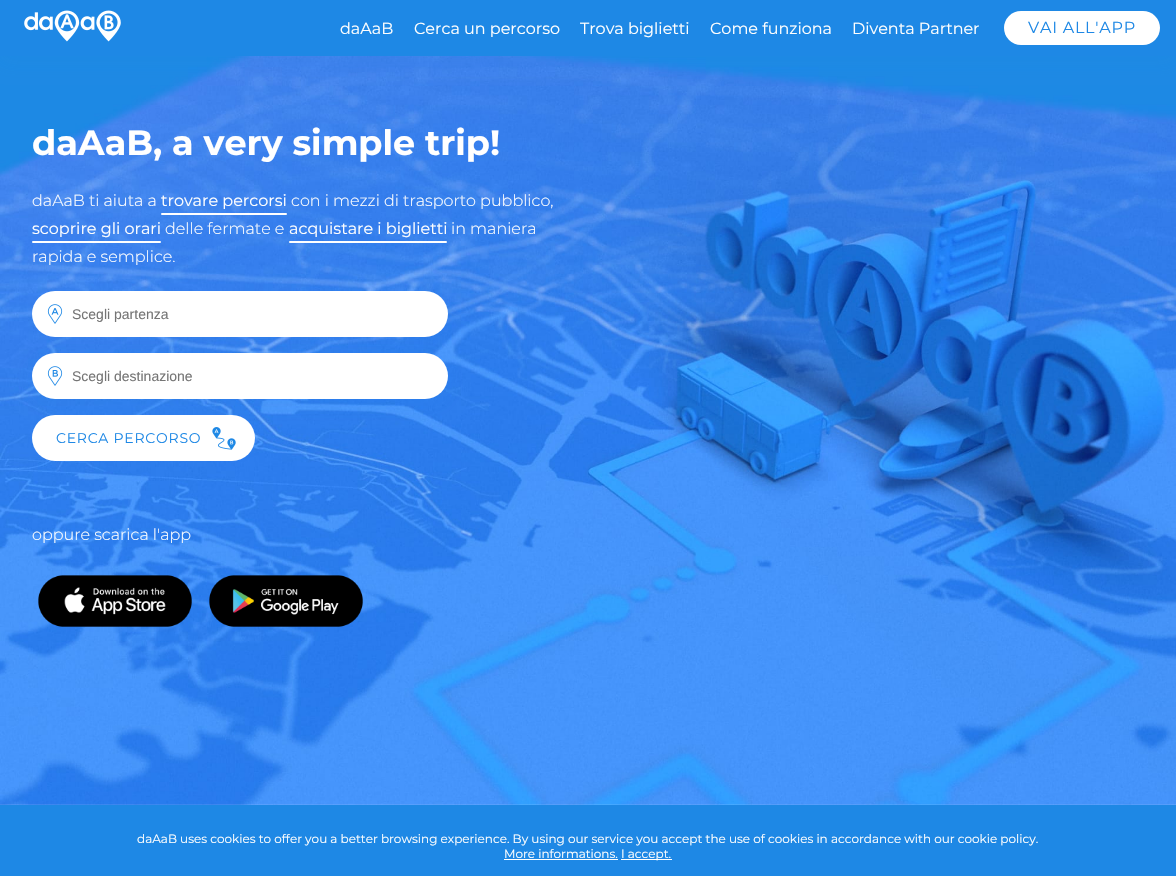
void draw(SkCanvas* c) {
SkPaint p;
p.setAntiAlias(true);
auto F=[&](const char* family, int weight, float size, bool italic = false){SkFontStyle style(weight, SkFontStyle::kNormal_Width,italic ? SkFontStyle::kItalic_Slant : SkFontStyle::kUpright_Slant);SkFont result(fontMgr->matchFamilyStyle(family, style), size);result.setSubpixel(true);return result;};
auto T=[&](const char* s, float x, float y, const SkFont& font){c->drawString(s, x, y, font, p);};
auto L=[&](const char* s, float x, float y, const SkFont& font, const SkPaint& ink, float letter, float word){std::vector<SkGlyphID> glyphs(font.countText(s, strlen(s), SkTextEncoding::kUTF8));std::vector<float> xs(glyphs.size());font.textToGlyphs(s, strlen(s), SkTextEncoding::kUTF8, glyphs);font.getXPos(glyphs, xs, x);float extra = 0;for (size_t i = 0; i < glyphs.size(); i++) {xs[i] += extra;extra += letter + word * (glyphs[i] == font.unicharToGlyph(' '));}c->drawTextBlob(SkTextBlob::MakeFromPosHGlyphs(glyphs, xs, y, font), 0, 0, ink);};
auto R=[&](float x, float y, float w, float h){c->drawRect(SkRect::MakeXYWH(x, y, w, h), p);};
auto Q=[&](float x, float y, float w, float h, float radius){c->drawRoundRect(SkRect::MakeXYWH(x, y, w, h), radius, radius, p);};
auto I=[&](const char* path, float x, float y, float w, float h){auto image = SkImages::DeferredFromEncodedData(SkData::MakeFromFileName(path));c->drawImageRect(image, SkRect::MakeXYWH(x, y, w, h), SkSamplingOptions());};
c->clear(0xffffffff);
I("2.png",0,56,1176,749);
p.setColor(0x1a1e88e5);
p.setMaskFilter(SkMaskFilter::MakeBlur(kNormal_SkBlurStyle, 10));
c->drawRect(SkRect::MakeXYWH(0,5,1176,56),p);
p.setMaskFilter(nullptr);
p.setColor(0xff1e88e5);
R(0,0,1176,56);
I("1.png",24,10,97,32);
auto f1 = F("Montserrat",400,16);
p.setColor(0xffffffff);
T("daAaB",340,34,f1);
T("Cerca un percorso",414,34,f1);
T("Trova biglietti",580,34,f1);
T("Come funziona",710,34,f1);
T("Diventa Partner",852,34,f1);
Q(1004,11,156,34,17);
p.setColor(0xff1e88e5);
L("VAI ALL'APP",1028,33,f1,p,.75,0);
auto f2 = F("Montserrat",700,35);
p.setColor(0xffffffff);
T("daAaB, a very simple trip!",32,155,f2);
auto f3 = F("Montserrat",300,16);
T("daAaB ti aiuta a",32,206,f3);
T("trovare percorsi",161,206,f1);
Q(161,213,126,2,1);
T("con i mezzi di trasporto pubblico,",291,206,f3);
T("scoprire gli orari",32,234,f1);
Q(32,241,129,2,1);
T("delle fermate e",165,234,f3);
T("acquistare i biglietti",289,234,f1);
Q(289,241,158,2,1);
T("in maniera",451,234,f3);
T("rapida e semplice.",32,262,f3);
Q(32,291,416,46,23);
I("3.png",47,304,16,20);
auto f4 = F("Liberation Sans",400,14);
p.setColor(0xff757575);
T("Scegli partenza",72,319,f4);
p.setColor(0x1a1e88e5);
p.setMaskFilter(SkMaskFilter::MakeBlur(kNormal_SkBlurStyle, 10));
c->drawRoundRect(SkRect::MakeXYWH(32,358,416,46),23,23,p);
p.setMaskFilter(nullptr);
p.setColor(0xffffffff);
Q(32,353,416,46,23);
I("4.png",47,366,16,20);
p.setColor(0xff757575);
T("Scegli destinazione",72,381,f4);
p.setColor(0xffffffff);
Q(32,415,223,46,23);
auto f5 = F("Montserrat",400,14);
p.setColor(0xff1e88e5);
L("CERCA PERCORSO",56,443,f5,p,.75,0);
I("5.png",212,427,24,23);
p.setColor(0xffffffff);
T("oppure scarica l'app",32,540,f3);
I("6.png",38,575,154,52);
I("7.png",209,575,154,52);
p.setColor(0xff1e88e5);
R(0,805,1176,71);
auto f6 = F("Montserrat",400,12);
p.setColor(0xffffffff);
T("daAaB uses cookies to offer you a better browsing experience. By using our service you accept the use of cookies in accordance with our cookie policy.",137,843,f6);
T("More informations.",504,858,f6);
R(504,859,114,1);
R(621,859,51,1);
T("I accept.",621,858,f6);
}
